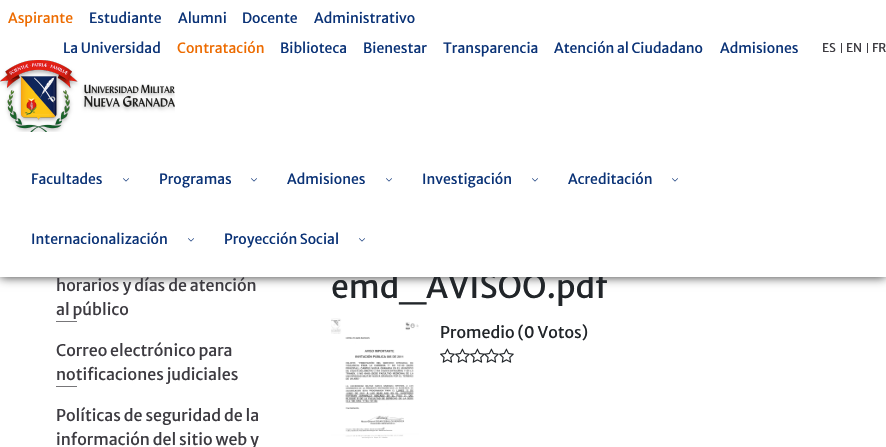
void draw(SkCanvas* c) {
SkPaint p;
p.setAntiAlias(true);
auto F=[&](const char* family, int weight, float size, bool italic = false){SkFontStyle style(weight, SkFontStyle::kNormal_Width,italic ? SkFontStyle::kItalic_Slant : SkFontStyle::kUpright_Slant);SkFont result(fontMgr->matchFamilyStyle(family, style), size);result.setSubpixel(true);return result;};
auto T=[&](const char* s, float x, float y, const SkFont& font){c->drawString(s, x, y, font, p);};
auto R=[&](float x, float y, float w, float h){c->drawRect(SkRect::MakeXYWH(x, y, w, h), p);};
auto I=[&](const char* path, float x, float y, float w, float h){auto image = SkImages::DeferredFromEncodedData(SkData::MakeFromFileName(path));c->drawImageRect(image, SkRect::MakeXYWH(x, y, w, h), SkSamplingOptions());};
c->clear(0xffffffff);
p.setColor(0xcc000000);
p.setMaskFilter(SkMaskFilter::MakeBlur(kNormal_SkBlurStyle, 5));
c->drawRect(SkRect::MakeXYWH(0,0,886,277),p);
p.setMaskFilter(nullptr);
auto f1 = F("Merriweather Sans",400,32);
p.setColor(0xff212529);
T("emd_AVISOO.pdf",331,298,f1);
p.setColor(0xffffffff);
R(0,0,886,277);
auto f2 = F("Merriweather Sans",400,14);
p.setColor(0xffed6b00);
T("Aspirante",8,23,f2);
p.setColor(0xff0b3377);
T("Estudiante",89,23,f2);
T("Alumni",178,23,f2);
T("Docente",242,23,f2);
T("Administrativo",314,23,f2);
T("La Universidad",63,53,f2);
p.setColor(0xffed6b00);
T("Contratación",177,53,f2);
p.setColor(0xff0b3377);
T("Biblioteca",280,53,f2);
T("Bienestar",363,53,f2);
T("Transparencia",443,53,f2);
T("Atención al Ciudadano",554,53,f2);
T("Admisiones",720,53,f2);
auto f3 = F("Merriweather Sans",400,12);
p.setColor(0xff3d3b41);
T("ES",822,52,f3);
R(841,43,1,10);
T("EN",846,52,f3);
R(867,43,1,10);
T("FR",872,52,f3);
I("1.png",0,60,175,72);
p.setColor(0xff0b3377);
T("Facultades",31,184,f2);
I("2.png",123,178,6,4);
T("Programas",159,184,f2);
I("2.png",251,178,6,4);
T("Admisiones",287,184,f2);
I("2.png",386,178,6,4);
T("Investigación",422,184,f2);
I("2.png",532,178,6,4);
T("Acreditación",568,184,f2);
I("2.png",672,178,6,4);
T("Internacionalización",31,244,f2);
I("2.png",188,238,6,4);
T("Proyección Social",224,244,f2);
I("2.png",359,238,6,4);
auto f4 = F("Merriweather Sans",400,16);
p.setColor(0xff3d3b41);
T("horarios y días de atención",56,291,f4);
T("al público",56,315,f4);
p.setColor(0xff777679);
R(56,321,21,1);
p.setColor(0xff3d3b41);
T("Correo electrónico para",56,356,f4);
T("notificaciones judiciales",56,380,f4);
p.setColor(0xff777679);
R(56,386,21,1);
p.setColor(0xff3d3b41);
T("Políticas de seguridad de la",56,421,f4);
T("información del sitio web y",56,445,f4);
I("3.png",331,318,88,121);
p.setColor(0xff212529);
T("Promedio (0 Votos)",440,338,f4);
I("4.png",440,348,15,15);
I("4.png",455,348,15,15);
I("4.png",470,348,15,15);
I("5.png",484,348,15,15);
I("4.png",499,348,15,15);
}
